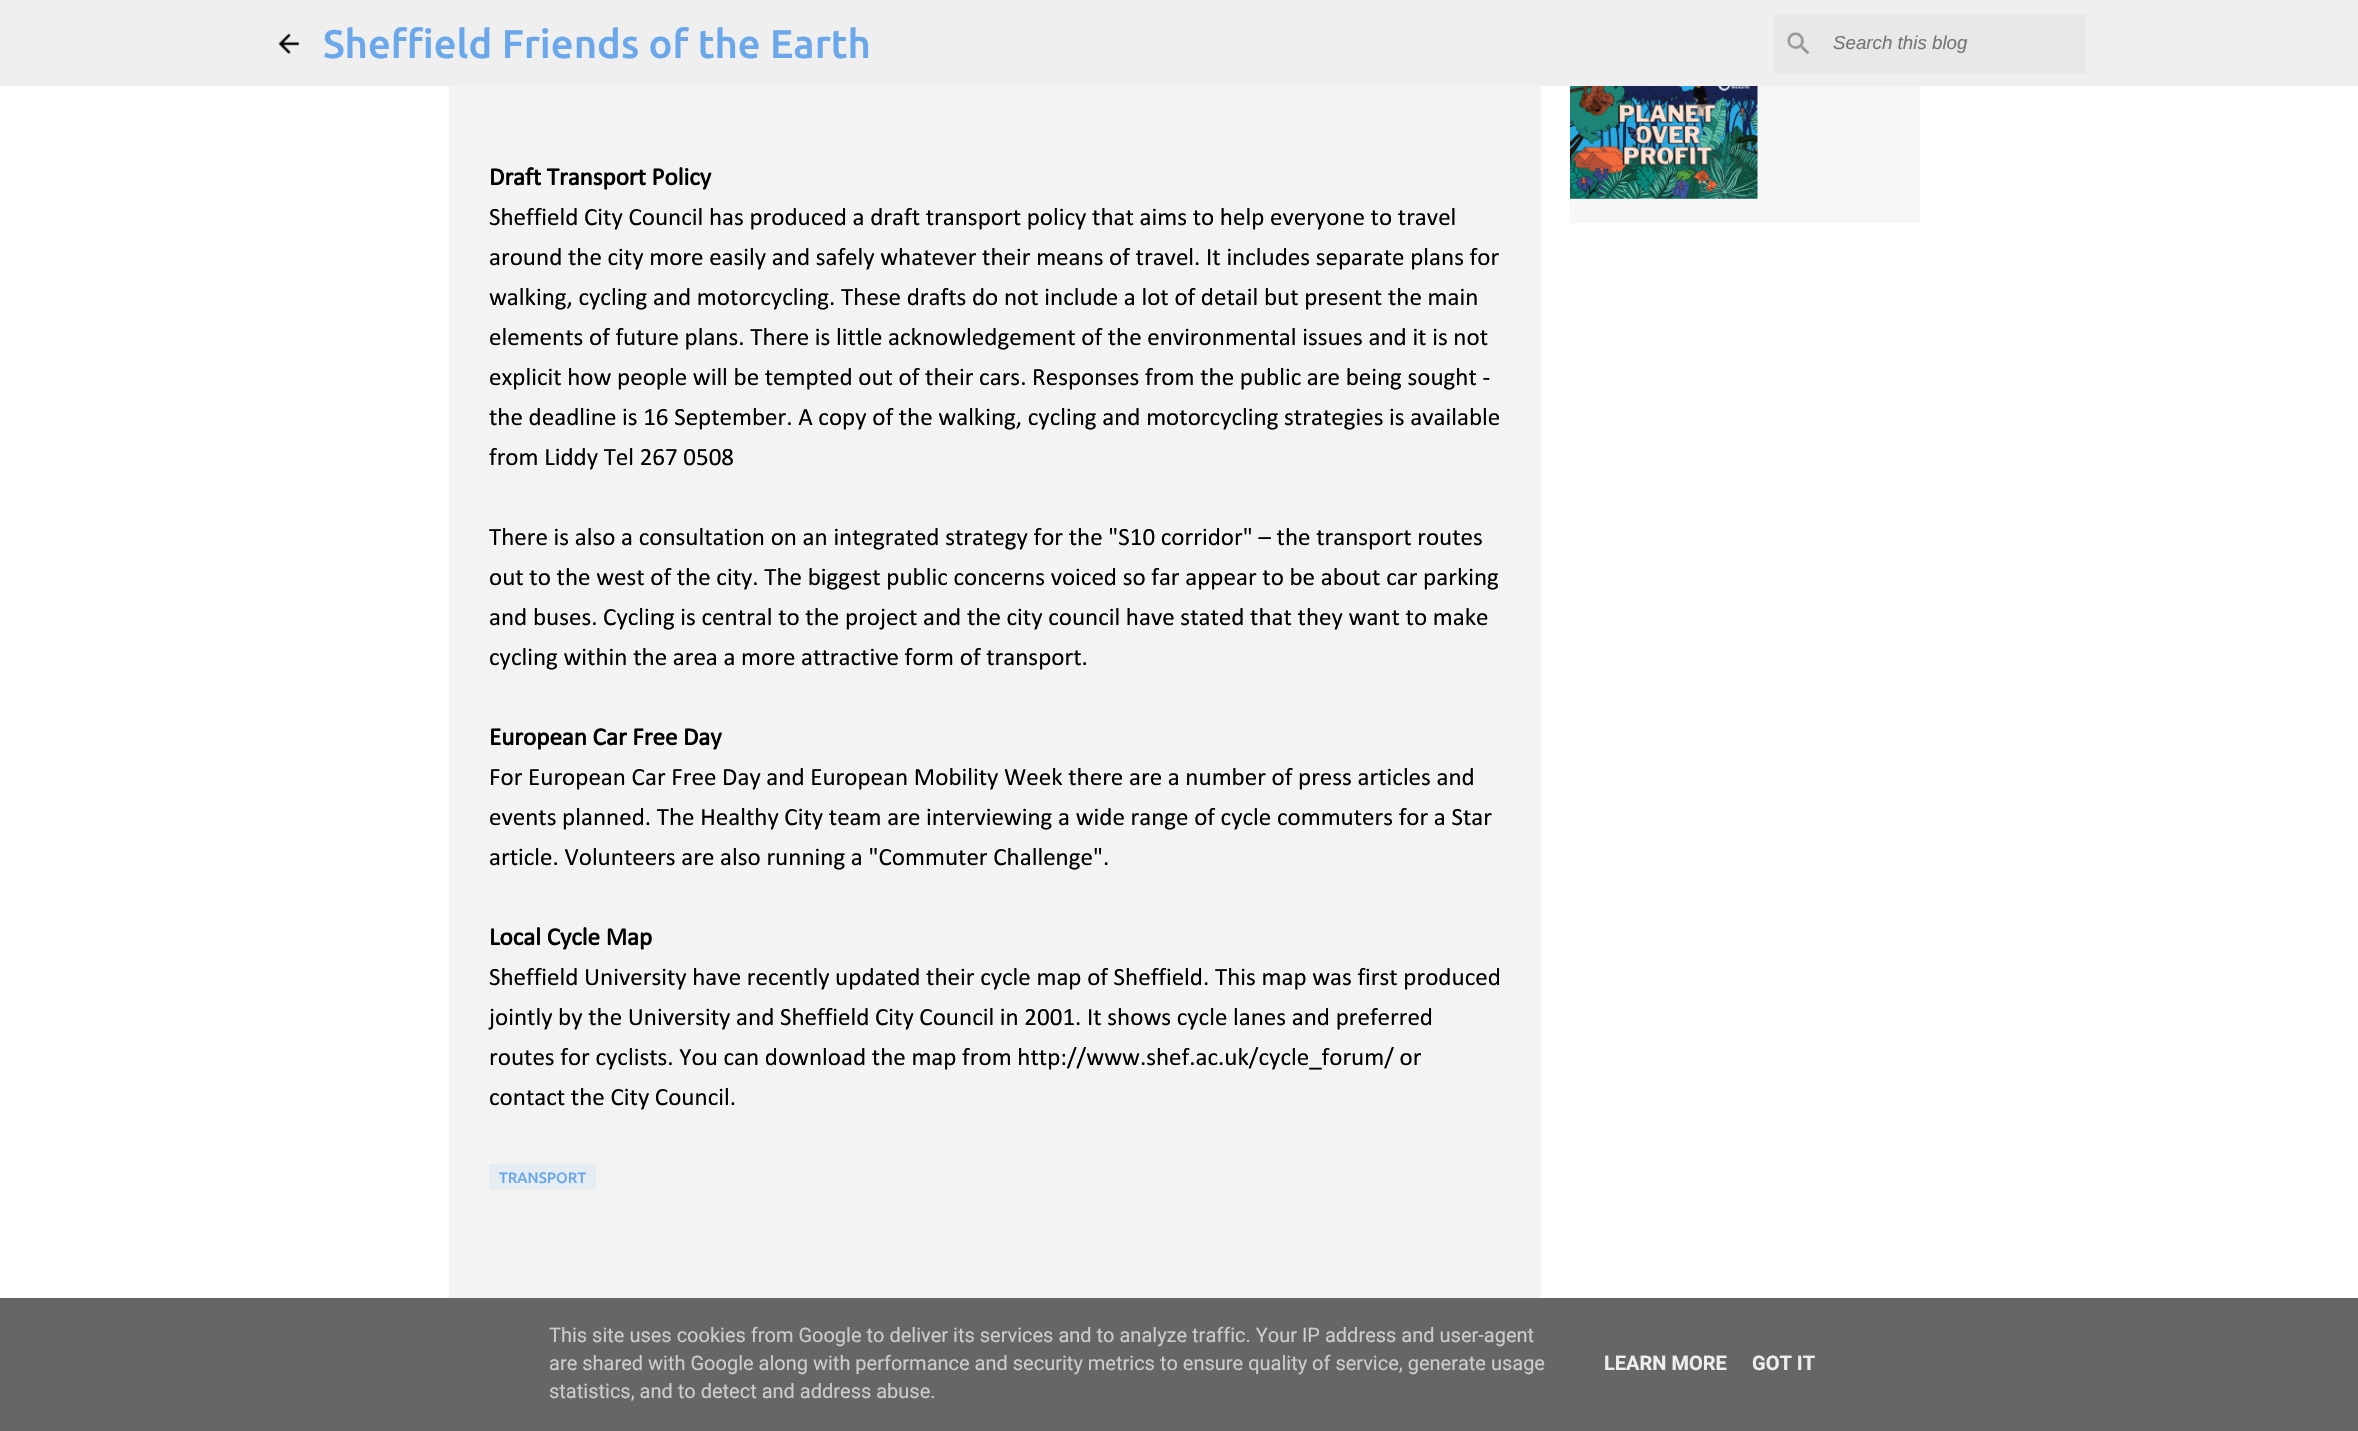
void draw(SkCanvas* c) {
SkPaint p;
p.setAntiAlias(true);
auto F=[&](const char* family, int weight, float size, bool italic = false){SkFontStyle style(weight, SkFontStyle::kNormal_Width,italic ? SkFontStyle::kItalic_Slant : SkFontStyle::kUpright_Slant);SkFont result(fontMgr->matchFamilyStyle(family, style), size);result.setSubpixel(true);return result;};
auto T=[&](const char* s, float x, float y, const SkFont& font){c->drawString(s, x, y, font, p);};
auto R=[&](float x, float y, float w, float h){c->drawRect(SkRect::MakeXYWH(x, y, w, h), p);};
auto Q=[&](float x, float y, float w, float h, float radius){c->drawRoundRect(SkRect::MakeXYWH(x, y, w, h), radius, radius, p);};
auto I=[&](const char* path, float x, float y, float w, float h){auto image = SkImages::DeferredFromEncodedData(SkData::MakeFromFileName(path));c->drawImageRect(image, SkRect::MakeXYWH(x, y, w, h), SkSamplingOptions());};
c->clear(0xffffffff);
p.setColor(0xffefefef);
R(0,0,2358,86);
I("1.png",278,33,21,21);
auto f1 = F("Ubuntu",500,40);
p.setColor(0xff6ba8eb);
T("Sheffield Friends of the Earth",323,58,f1);
p.setColor(0xffe8e8e8);
R(1774,14,312,60);
I("2.png",1787,32,23,23);
auto f2 = F("Liberation Sans",400,18.75,true);
p.setColor(0xff757575);
T("Search this blog",1833,49,f2);
p.setColor(0xfff3f3f3);
R(449,86,1092,1212);
auto f3 = F("Calibri",700,25);
p.setColor(0xff000000);
T("Draft Transport Policy",489,185,f3);
auto f4 = F("Calibri",400,25);
T("Sheffield City Council has produced a draft transport policy that aims to help everyone to travel",489,225,f4);
T("around the city more easily and safely whatever their means of travel. It includes separate plans for",489,265,f4);
T("walking, cycling and motorcycling. These drafts do not include a lot of detail but present the main",489,305,f4);
T("elements of future plans. There is little acknowledgement of the environmental issues and it is not",489,345,f4);
T("explicit how people will be tempted out of their cars. Responses from the public are being sought -",489,385,f4);
T("the deadline is 16 September. A copy of the walking, cycling and motorcycling strategies is available",489,425,f4);
T("from Liddy Tel 267 0508",489,465,f4);
T("There is also a consultation on an integrated strategy for the \"S10 corridor\" – the transport routes",489,545,f4);
T("out to the west of the city. The biggest public concerns voiced so far appear to be about car parking",489,585,f4);
T("and buses. Cycling is central to the project and the city council have stated that they want to make",489,625,f4);
T("cycling within the area a more attractive form of transport.",489,665,f4);
T("European Car Free Day",489,745,f3);
T("For European Car Free Day and European Mobility Week there are a number of press articles and",489,785,f4);
T("events planned. The Healthy City team are interviewing a wide range of cycle commuters for a Star",489,825,f4);
T("article. Volunteers are also running a \"Commuter Challenge\".",489,865,f4);
T("Local Cycle Map",489,945,f3);
T("Sheffield University have recently updated their cycle map of Sheffield. This map was first produced",489,985,f4);
T("jointly by the University and Sheffield City Council in 2001. It shows cycle lanes and preferred",489,1025,f4);
T("routes for cyclists. You can download the map from http://www.shef.ac.uk/cycle_forum/ or",489,1065,f4);
T("contact the City Council.",489,1105,f4);
p.setColor(0xffe5ecf2);
Q(489,1164,107,26,2.5);
auto f5 = F("Ubuntu",500,15);
p.setColor(0xff6ba8eb);
T("TRANSPORT",499,1183,f5);
p.setColor(0xfff7f7f7);
R(1570,86,350,137);
I("3.png",1570,86,188,113);
p.setColor(0xff666666);
R(0,1298,2358,133);
auto f6 = F("Roboto",400,20);
p.setColor(0xffcccccc);
T("This site uses cookies from Google to deliver its services and to analyze traffic. Your IP address and user-agent",549,1342,f6);
T("are shared with Google along with performance and security metrics to ensure quality of service, generate usage",549,1370,f6);
T("statistics, and to detect and address abuse.",549,1398,f6);
auto f7 = F("Roboto",700,20);
p.setColor(0xffeeeeee);
T("LEARN MORE",1604,1370,f7);
T("GOT IT",1752,1370,f7);
}
